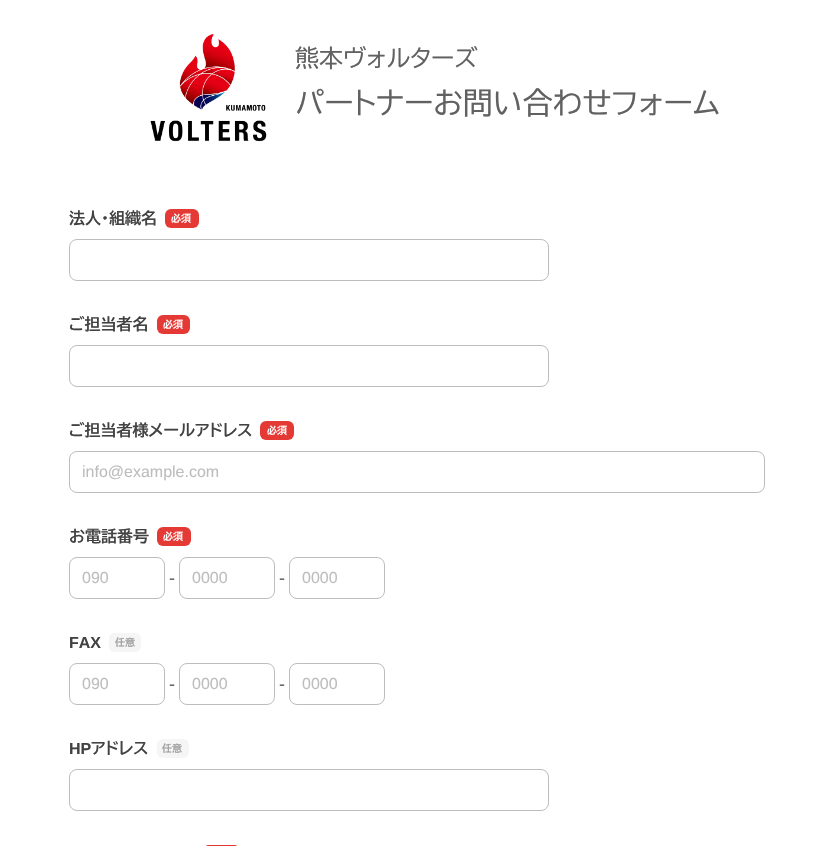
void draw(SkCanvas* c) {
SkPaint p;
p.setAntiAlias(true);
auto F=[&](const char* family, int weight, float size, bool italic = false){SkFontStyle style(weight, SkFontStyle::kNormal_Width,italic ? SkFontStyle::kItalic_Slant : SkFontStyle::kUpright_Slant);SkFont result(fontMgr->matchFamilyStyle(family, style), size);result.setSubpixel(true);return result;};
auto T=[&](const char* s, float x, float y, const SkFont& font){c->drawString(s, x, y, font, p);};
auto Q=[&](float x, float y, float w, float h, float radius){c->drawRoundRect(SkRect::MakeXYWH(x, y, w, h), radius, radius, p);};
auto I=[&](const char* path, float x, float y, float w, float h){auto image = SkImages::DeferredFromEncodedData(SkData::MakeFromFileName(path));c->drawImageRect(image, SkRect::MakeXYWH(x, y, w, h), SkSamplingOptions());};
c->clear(0xffffffff);
I("1.png",150,34,117,108);
auto f1 = F("BIZ UDPGothic",400,24);
p.setColor(0xff616161);
T("熊本ヴォルターズ",295,67,f1);
auto f2 = F("BIZ UDPGothic",400,30);
T("パートナーお問い合わせフォーム",295,114,f2);
auto f3 = F("BIZ UDPGothic",700,16);
p.setColor(0xff424242);
T("法人・組織名",69,224,f3);
p.setColor(0xffe53935);
Q(165,209,34,19,6);
auto f4 = F("BIZ UDPGothic",700,10);
p.setColor(0xffffffff);
T("必須",171,222,f4);
p.setStroke(true);
p.setStrokeWidth(1);
p.setColor(0xffbdbdbd);
c->drawRoundRect(SkRect::MakeXYWH(69.5,239.5,479,41),7.5,7.5,p);
p.setStroke(false);
p.setColor(0xff424242);
T("ご担当者名",69,330,f3);
p.setColor(0xffe53935);
Q(157,315,33,19,6);
p.setColor(0xffffffff);
T("必須",163,328,f4);
p.setStroke(true);
p.setColor(0xffbdbdbd);
c->drawRoundRect(SkRect::MakeXYWH(69.5,345.5,479,41),7.5,7.5,p);
p.setStroke(false);
p.setColor(0xff424242);
T("ご担当者様メールアドレス",69,436,f3);
p.setColor(0xffe53935);
Q(260,421,34,19,6);
p.setColor(0xffffffff);
T("必須",267,434,f4);
p.setStroke(true);
p.setColor(0xffbdbdbd);
c->drawRoundRect(SkRect::MakeXYWH(69.5,451.5,695,41),7.5,7.5,p);
auto f5 = F("Liberation Sans",400,16);
p.setStroke(false);
T("info@example.com",82,477,f5);
p.setColor(0xff424242);
T("お電話番号",69,542,f3);
p.setColor(0xffe53935);
Q(157,527,34,19,6);
p.setColor(0xffffffff);
T("必須",163,540,f4);
p.setStroke(true);
p.setColor(0xffbdbdbd);
c->drawRoundRect(SkRect::MakeXYWH(69.5,557.5,95,41),7.5,7.5,p);
p.setStroke(false);
T("090",82,583,f5);
auto f6 = F("Liberation Sans",400,18);
p.setColor(0xff616161);
T("-",169,584,f6);
p.setStroke(true);
p.setColor(0xffbdbdbd);
c->drawRoundRect(SkRect::MakeXYWH(179.5,557.5,95,41),7.5,7.5,p);
p.setStroke(false);
T("0000",192,583,f5);
p.setColor(0xff616161);
T("-",279,584,f6);
p.setStroke(true);
p.setColor(0xffbdbdbd);
c->drawRoundRect(SkRect::MakeXYWH(289.5,557.5,95,41),7.5,7.5,p);
p.setStroke(false);
T("0000",302,583,f5);
auto f7 = F("Liberation Sans",700,16);
p.setColor(0xff424242);
T("FAX",69,648,f7);
p.setColor(0xfff5f5f5);
Q(109,633,32,19,6);
p.setColor(0xff9e9e9e);
T("任意",115,646,f4);
p.setStroke(true);
p.setColor(0xffbdbdbd);
c->drawRoundRect(SkRect::MakeXYWH(69.5,663.5,95,41),7.5,7.5,p);
p.setStroke(false);
T("090",82,689,f5);
p.setColor(0xff616161);
T("-",169,690,f6);
p.setStroke(true);
p.setColor(0xffbdbdbd);
c->drawRoundRect(SkRect::MakeXYWH(179.5,663.5,95,41),7.5,7.5,p);
p.setStroke(false);
T("0000",192,689,f5);
p.setColor(0xff616161);
T("-",279,690,f6);
p.setStroke(true);
p.setColor(0xffbdbdbd);
c->drawRoundRect(SkRect::MakeXYWH(289.5,663.5,95,41),7.5,7.5,p);
p.setStroke(false);
T("0000",302,689,f5);
p.setColor(0xff424242);
T("HP",69,754,f7);
T("アドレス",91,754,f3);
p.setColor(0xfff5f5f5);
Q(157,739,32,19,6);
p.setColor(0xff9e9e9e);
T("任意",162,752,f4);
p.setStroke(true);
p.setColor(0xffbdbdbd);
c->drawRoundRect(SkRect::MakeXYWH(69.5,769.5,479,41),7.5,7.5,p);
p.setStroke(false);
p.setColor(0xffe53935);
Q(205,845,33,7,6);
}
